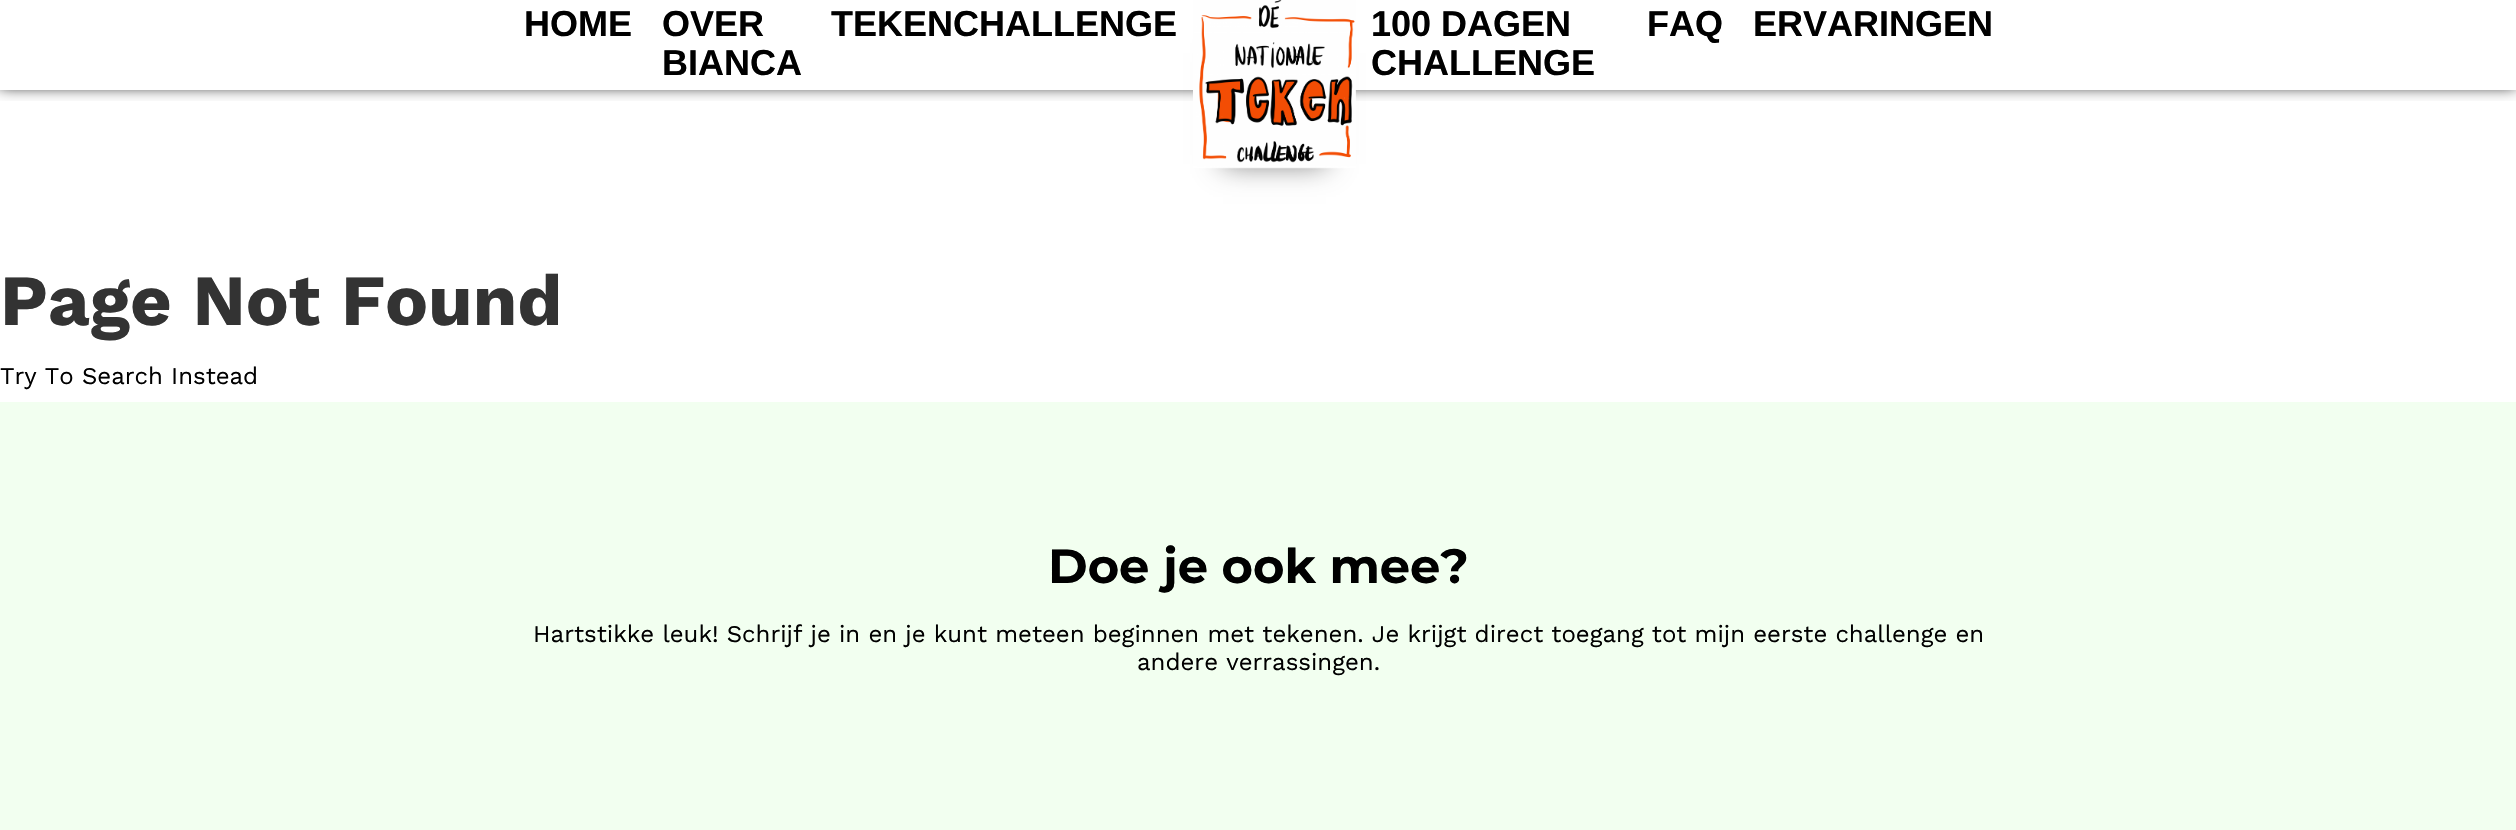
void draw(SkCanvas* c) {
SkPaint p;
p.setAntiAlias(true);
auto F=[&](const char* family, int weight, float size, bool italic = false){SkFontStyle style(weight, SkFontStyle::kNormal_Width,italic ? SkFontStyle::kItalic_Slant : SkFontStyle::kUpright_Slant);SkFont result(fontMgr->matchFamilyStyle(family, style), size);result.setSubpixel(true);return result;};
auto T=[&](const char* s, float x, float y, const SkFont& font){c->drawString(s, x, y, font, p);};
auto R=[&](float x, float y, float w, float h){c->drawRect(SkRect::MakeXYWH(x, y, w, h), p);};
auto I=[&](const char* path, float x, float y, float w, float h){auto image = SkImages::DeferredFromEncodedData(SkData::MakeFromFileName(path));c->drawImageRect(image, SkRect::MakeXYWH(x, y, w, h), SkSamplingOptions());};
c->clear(0xffffffff);
c->save();
c->clipRect(SkRect::MakeXYWH(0,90,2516,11));
p.setColor(0xff000000);
p.setMaskFilter(SkMaskFilter::MakeBlur(kNormal_SkBlurStyle, 7.5));
c->drawRect(SkRect::MakeXYWH(-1,-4,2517,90),p);
p.setMaskFilter(nullptr);
c->restore();
auto f1 = F("Liberation Sans",700,36);
T("HOME",524,36,f1);
T("OVER",662,36,f1);
T("BIANCA",662,75,f1);
T("TEKENCHALLENGE",831,36,f1);
p.setColor(0x8c000000);
p.setMaskFilter(SkMaskFilter::MakeBlur(kNormal_SkBlurStyle, 13.5));
c->drawRect(SkRect::MakeXYWH(1223,53,103,111),p);
p.setMaskFilter(nullptr);
I("1.png",1193,0,163,169);
p.setColor(0xff000000);
T("100 DAGEN",1371,36,f1);
T("CHALLENGE",1371,75,f1);
T("FAQ",1647,36,f1);
T("ERVARINGEN",1753,36,f1);
auto f2 = F("Work Sans",700,72);
p.setColor(0xff333333);
T("Page Not Found",0,325,f2);
auto f3 = F("Work Sans",400,24);
p.setColor(0xff000000);
T("Try To Search Instead",0,384,f3);
p.setColor(0xfff2fff0);
R(0,402,2516,428);
auto f4 = F("Montserrat",700,48);
p.setColor(0xff000000);
T("Doe je ook mee?",1048,583,f4);
T("Hartstikke leuk! Schrijf je in en je kunt meteen beginnen met tekenen. Je krijgt direct toegang tot mijn eerste challenge en",533,642,f3);
T("andere verrassingen.",1137,670,f3);
}
